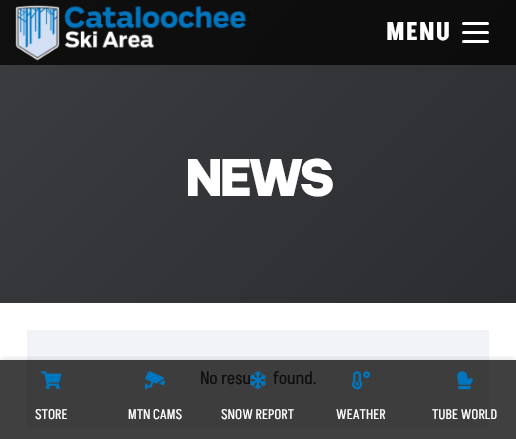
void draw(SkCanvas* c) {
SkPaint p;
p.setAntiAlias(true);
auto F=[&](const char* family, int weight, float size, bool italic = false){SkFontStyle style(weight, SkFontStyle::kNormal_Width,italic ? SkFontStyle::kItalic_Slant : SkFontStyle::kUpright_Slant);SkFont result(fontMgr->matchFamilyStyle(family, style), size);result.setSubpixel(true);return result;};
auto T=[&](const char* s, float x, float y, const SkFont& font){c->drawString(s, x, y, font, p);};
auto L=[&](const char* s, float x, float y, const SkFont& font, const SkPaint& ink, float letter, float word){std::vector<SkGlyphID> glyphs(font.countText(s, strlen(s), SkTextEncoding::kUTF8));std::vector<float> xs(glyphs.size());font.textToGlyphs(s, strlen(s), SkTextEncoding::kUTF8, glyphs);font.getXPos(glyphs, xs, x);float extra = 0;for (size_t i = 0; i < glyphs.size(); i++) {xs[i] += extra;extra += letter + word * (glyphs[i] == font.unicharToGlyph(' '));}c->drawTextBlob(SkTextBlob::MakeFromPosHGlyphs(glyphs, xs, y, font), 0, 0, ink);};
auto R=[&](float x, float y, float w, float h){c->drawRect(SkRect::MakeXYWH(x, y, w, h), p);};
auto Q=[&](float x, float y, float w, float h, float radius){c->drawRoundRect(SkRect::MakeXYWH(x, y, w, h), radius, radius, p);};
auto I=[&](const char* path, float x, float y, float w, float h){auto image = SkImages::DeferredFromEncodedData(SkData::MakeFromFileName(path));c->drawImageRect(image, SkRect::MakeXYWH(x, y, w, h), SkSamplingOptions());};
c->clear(0xffffffff);
p.setColor(0xff404040);
R(0,360,516,79);
{
const SkColor colors[] = {0xff0f0f10,0xff0b0b0c};
const float stops[] = {0,1};
const SkPoint ends[] = {{53,-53}, {463,356}};
p.setShader(SkGradientShader::MakeLinear(ends, colors, stops, 2, SkTileMode::kClamp));
p.setAlpha(255);
}
R(0,0,516,65);
I("1.png",15,5,235,56);
auto f1 = F("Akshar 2",300,25);
p.setShader(nullptr);
p.setColor(0xffffffff);
L("MENU",386,40,f1,p,1,0);
Q(462,31,27,3,1.5);
Q(462,22,27,3,1.5);
Q(462,40,27,3,1.5);
{
const SkColor colors[] = {0xff3b3d40,0xff2b2d30};
const float stops[] = {0,1};
const SkPoint ends[] = {{53,-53}, {463,356}};
p.setShader(SkGradientShader::MakeLinear(ends, colors, stops, 2, SkTileMode::kClamp));
p.setAlpha(255);
}
R(0,65,516,238);
auto f2 = F("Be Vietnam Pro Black",900,50);
p.setShader(nullptr);
p.setColor(0xffffffff);
L("NEWS",185,196,f2,p,-3.5,0);
p.setColor(0xfff2f3f7);
R(27,330,462,30);
p.setColor(0xff3d3d3e);
R(27,360,462,68);
auto f3 = F("Akshar",300,18);
p.setColor(0xff0f0f10);
T("No resu",200,384,f3);
T("found.",273,384,f3);
c->save();
c->clipRect(SkRect::MakeXYWH(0,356,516,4));
p.setColor(0x1a000000);
p.setMaskFilter(SkMaskFilter::MakeBlur(kNormal_SkBlurStyle, 2.5));
c->drawRect(SkRect::MakeXYWH(1,358,514,77),p);
p.setMaskFilter(nullptr);
c->restore();
I("2.png",41,371,21,19);
auto f4 = F("Akshar",300,14);
p.setColor(0xffffffff);
T("STORE",35,419,f4);
I("3.png",145,371,21,19);
T("MTN CAMS",128,419,f4);
I("4.png",250,371,16,19);
T("SNOW REPORT",221,419,f4);
I("5.png",352,371,18,19);
T("WEATHER",336,419,f4);
I("6.png",457,371,16,19);
T("TUBE WORLD",432,419,f4);
}
